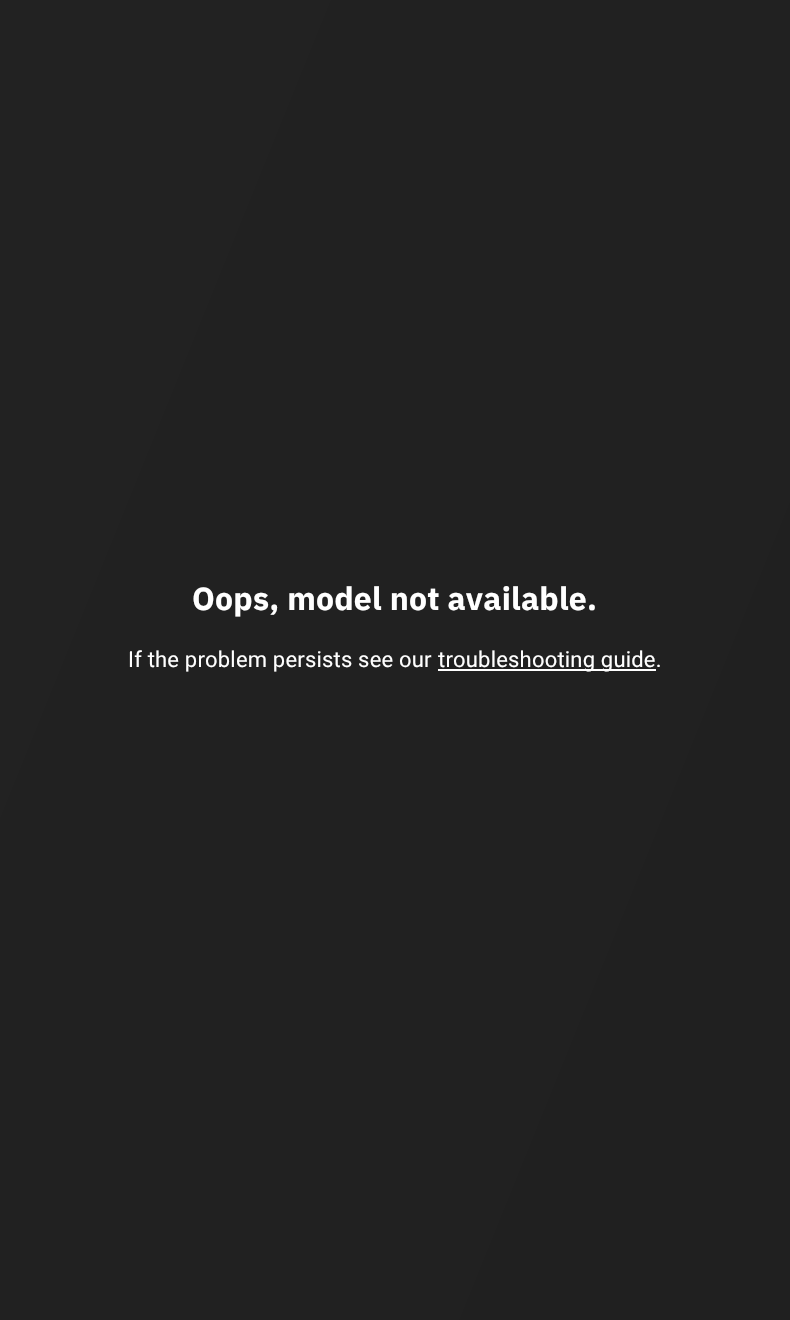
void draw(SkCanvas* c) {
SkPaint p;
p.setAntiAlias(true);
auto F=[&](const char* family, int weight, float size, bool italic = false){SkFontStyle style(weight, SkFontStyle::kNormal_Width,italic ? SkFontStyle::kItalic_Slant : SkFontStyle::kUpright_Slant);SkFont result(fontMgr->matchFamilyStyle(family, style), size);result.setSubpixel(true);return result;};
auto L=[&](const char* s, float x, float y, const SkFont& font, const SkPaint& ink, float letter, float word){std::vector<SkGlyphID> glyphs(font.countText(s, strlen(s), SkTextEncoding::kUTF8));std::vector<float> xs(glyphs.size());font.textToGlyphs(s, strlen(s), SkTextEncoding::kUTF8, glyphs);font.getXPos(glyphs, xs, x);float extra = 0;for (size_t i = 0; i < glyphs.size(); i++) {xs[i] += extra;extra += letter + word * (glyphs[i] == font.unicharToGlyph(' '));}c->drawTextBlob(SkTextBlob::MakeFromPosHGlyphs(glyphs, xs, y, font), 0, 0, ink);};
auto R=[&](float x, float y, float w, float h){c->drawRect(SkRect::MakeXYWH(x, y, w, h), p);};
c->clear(0xffffffff);
{
const SkColor colors[] = {0xff222222,0xff202020};
const float stops[] = {0,1};
const SkPoint ends[] = {{-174,430}, {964,890}};
p.setShader(SkGradientShader::MakeLinear(ends, colors, stops, 2, SkTileMode::kClamp));
p.setAlpha(255);
}
R(0,0,790,1320);
auto f1 = F("IBM Plex Sans",700,32);
p.setShader(nullptr);
p.setColor(0xffffffff);
L("Oops, model not available.",192,610,f1,p,.2,0);
auto f2 = F("Roboto",400,22);
L("If the problem persists see our",128,667,f2,p,.2,0);
R(438,669,218,2);
L("troubleshooting guide.",438,667,f2,p,.2,0);
}
